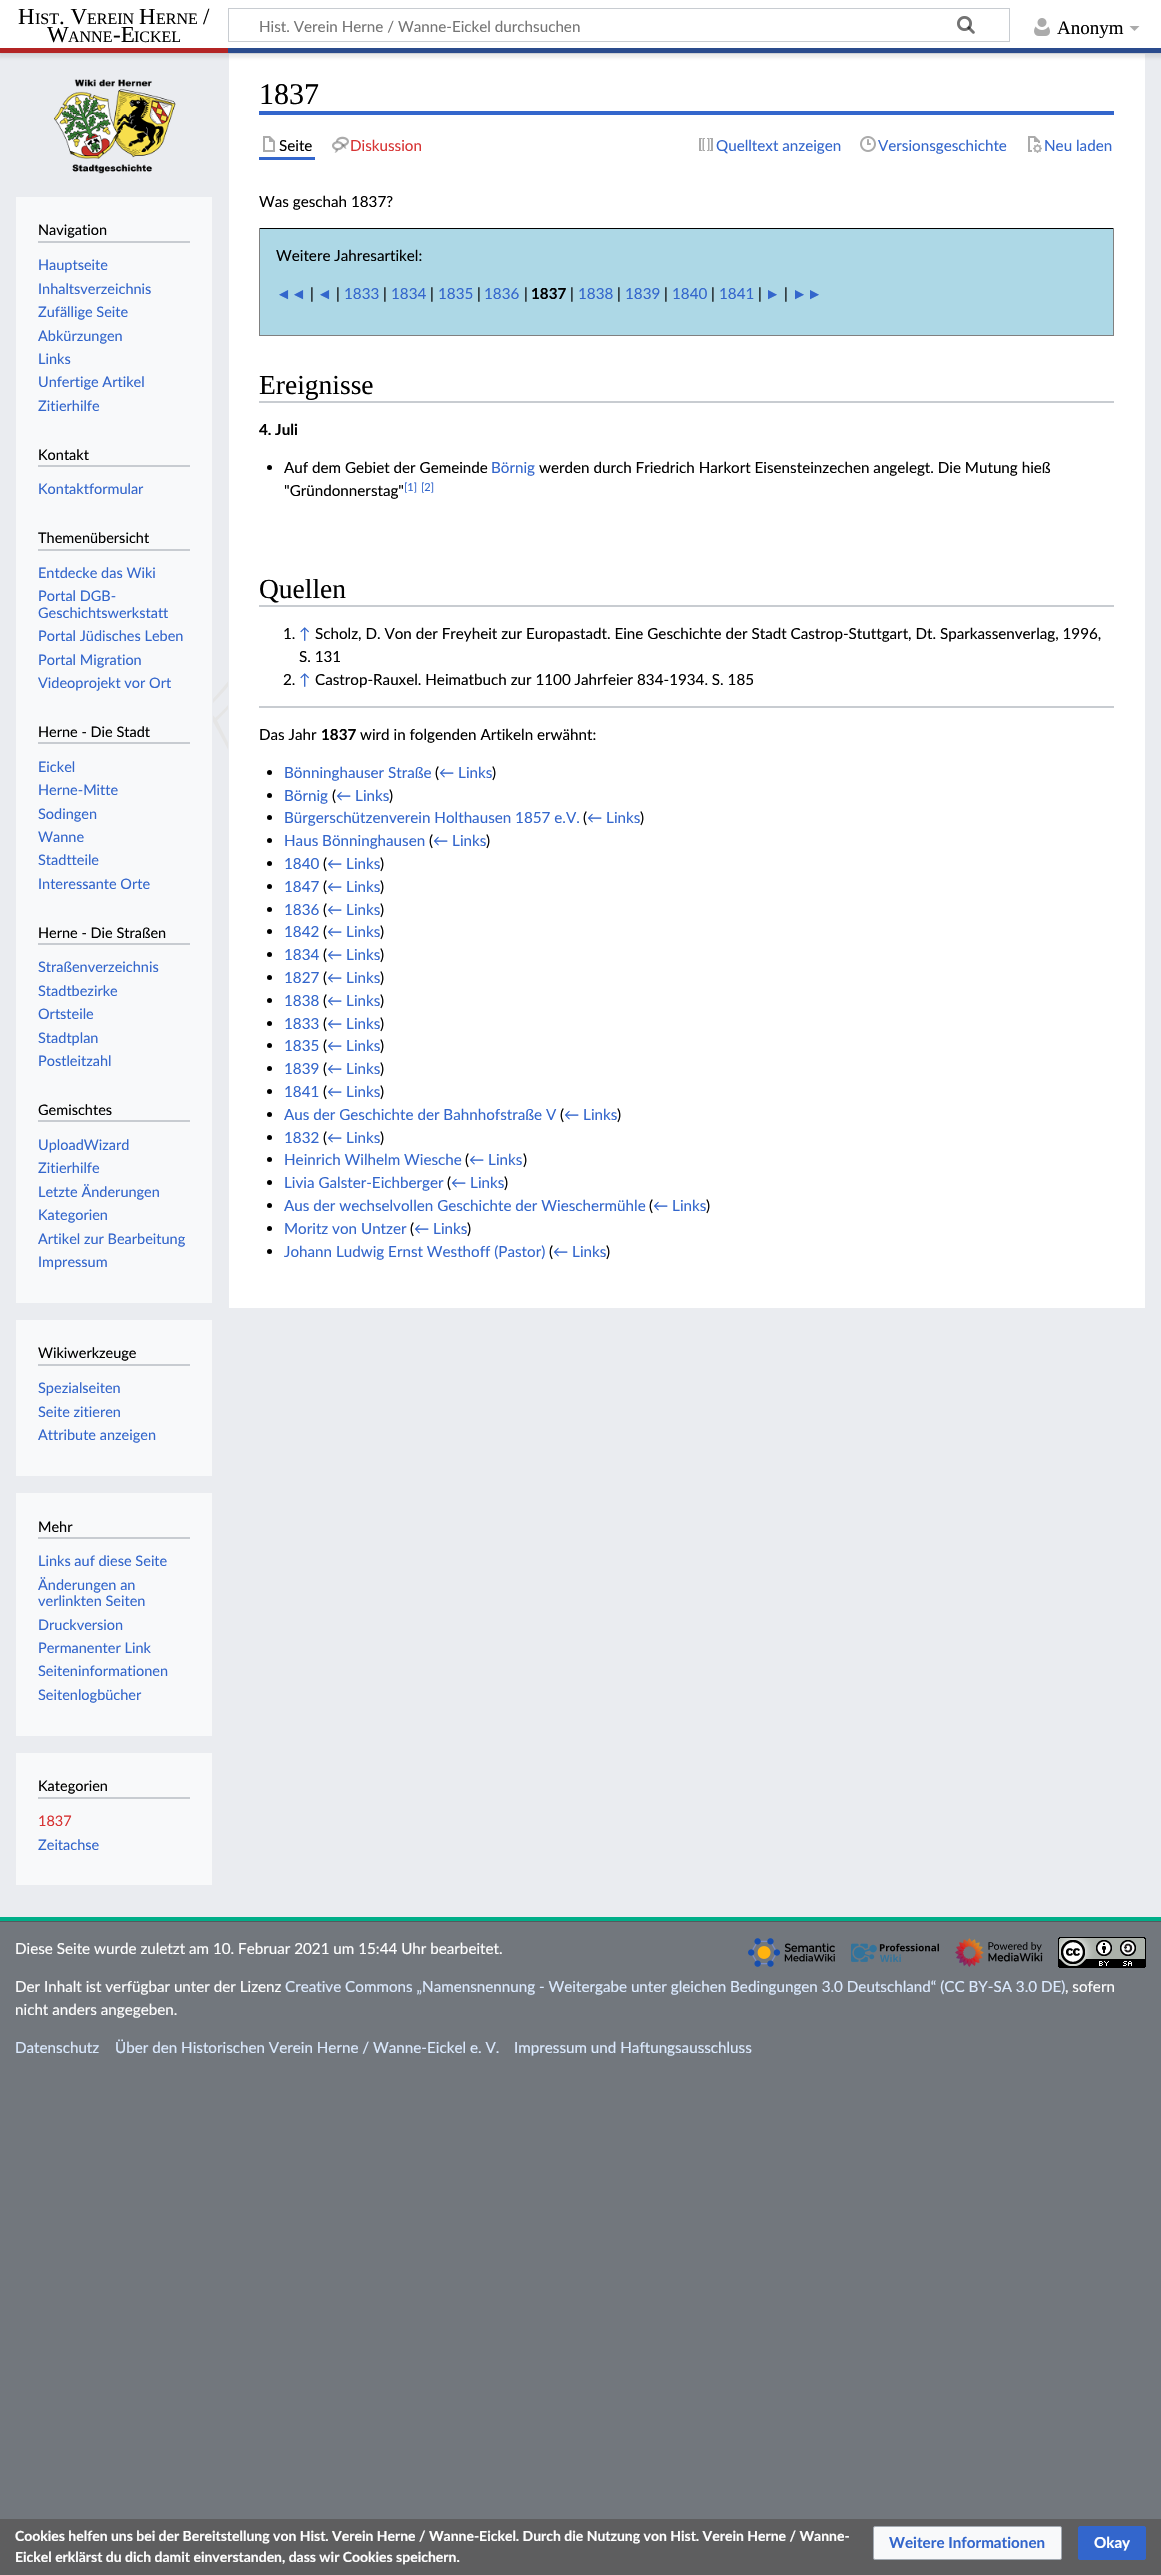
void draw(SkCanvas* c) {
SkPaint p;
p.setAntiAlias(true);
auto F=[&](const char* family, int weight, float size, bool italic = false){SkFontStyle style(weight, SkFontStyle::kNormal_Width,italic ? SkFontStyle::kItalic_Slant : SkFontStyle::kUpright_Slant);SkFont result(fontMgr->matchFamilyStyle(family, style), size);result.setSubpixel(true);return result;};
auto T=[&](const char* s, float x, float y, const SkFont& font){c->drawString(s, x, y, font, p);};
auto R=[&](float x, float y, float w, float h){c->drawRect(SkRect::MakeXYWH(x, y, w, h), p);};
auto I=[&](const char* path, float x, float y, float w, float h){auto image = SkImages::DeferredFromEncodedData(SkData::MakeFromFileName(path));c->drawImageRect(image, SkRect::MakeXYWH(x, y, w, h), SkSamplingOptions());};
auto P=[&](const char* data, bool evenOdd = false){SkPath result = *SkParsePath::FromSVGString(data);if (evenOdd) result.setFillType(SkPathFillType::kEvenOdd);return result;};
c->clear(0xff72777d);
p.setColor(0xffeaecf0);
R(0,53,1161,1864);
p.setColor(0xffffffff);
R(229,54,916,1254);
p.setColor(0x33000000);
p.setMaskFilter(SkMaskFilter::MakeBlur(kNormal_SkBlurStyle, 1));
c->drawRect(SkRect::MakeXYWH(0,48,1161,5),p);
p.setMaskFilter(nullptr);
p.setColor(0x12000000);
p.setMaskFilter(SkMaskFilter::MakeBlur(kNormal_SkBlurStyle, 1.5));
c->drawRect(SkRect::MakeXYWH(-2,49,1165,9),p);
p.setMaskFilter(nullptr);
p.setColor(0xffffffff);
R(0,0,1161,48);
auto f1 = F("Liberation Serif",400,23);
p.setColor(0xff000000);
T("H",18,24,f1);
auto f2 = F("Liberation Serif",400,16);
T("IST",35,24,f2);
T(". V",59,24,f1);
T("EREIN",87,24,f2);
T("H",139,24,f1);
T("ERNE",156,24,f2);
T("/",203,24,f1);
T("W",47,42,f1);
T("ANNE",68,42,f2);
T("-E",113,42,f1);
T("ICKEL",134,42,f2);
p.setStroke(true);
p.setStrokeWidth(1);
p.setColor(0xffc8ccd1);
c->drawRect(SkRect::MakeXYWH(228.5,8.5,781,33),p);
I("1.png",957,16,18,18);
auto f3 = F("Lato",400,15.2);
p.setStroke(false);
p.setColor(0xff757575);
T("Hist. Verein Herne / Wanne-Eickel durchsuchen",259,32,f3);
I("2.png",957,16,18,18);
I("3.png",1034,18,16,18);
auto f4 = F("Liberation Serif",400,19);
p.setColor(0xff000000);
T("Anonym",1057,34,f4);
p.setColor(0xffababab);
c->drawPath(P("M1139.5 26l-5 5l-5-5z"),p);
p.setColor(0xffb32424);
R(0,48,228,5);
p.setColor(0xff2a4b8d);
R(228,48,933,5);
I("4.png",213,681,15,69);
p.setColor(0xff00af89);
R(0,1917,1161,4);
p.setColor(0xff3366cc);
R(259,111,855,4);
auto f5 = F("Liberation Serif",400,30);
p.setColor(0xff000000);
T("1837",259,104,f5);
p.setColor(0xff3366cc);
R(259,157,56,3);
I("5.png",263,136,12,16);
p.setColor(0xff000000);
T("Seite",279,151,f3);
I("6.png",332,136,17,17);
p.setColor(0xffd73333);
T("Diskussion",350,151,f3);
I("7.png",699,138,14,13);
p.setColor(0xff3366cc);
T("Quelltext anzeigen",716,151,f3);
I("8.png",860,136,16,16);
T("Versionsgeschichte",878,151,f3);
I("9.png",1028,136,14,17);
T("Neu laden",1044,151,f3);
p.setColor(0xff000000);
T("Was geschah 1837?",259,207,f3);
p.setColor(0xffadd8e6);
R(260,229,853,106);
p.setColor(0xff000000);
R(259,228,855,1);
p.setColor(0xff808080);
R(1113,228,1,108);
R(259,335,855,1);
R(259,228,1,108);
p.setColor(0xff000000);
T("Weitere Jahresartikel:",276,261,f3);
auto f6 = F("Liberation Sans",400,15.2);
p.setColor(0xff3366cc);
T("◄◄",276,299,f6);
p.setColor(0xff000000);
T("|",310,299,f3);
p.setColor(0xff3366cc);
T("◄",317,299,f6);
p.setColor(0xff000000);
T("|",336,299,f3);
p.setColor(0xff3366cc);
T("1833",344,299,f3);
p.setColor(0xff000000);
T("|",383,299,f3);
p.setColor(0xff3366cc);
T("1834",391,299,f3);
p.setColor(0xff000000);
T("|",430,299,f3);
p.setColor(0xff3366cc);
T("1835",438,299,f3);
p.setColor(0xff000000);
T("|",477,299,f3);
p.setColor(0xff3366cc);
T("1836",484,299,f3);
p.setColor(0xff000000);
T("|",524,299,f3);
auto f7 = F("Lato",700,15.2);
T("1837",531,299,f7);
T("|",570,299,f3);
p.setColor(0xff3366cc);
T("1838",578,299,f3);
p.setColor(0xff000000);
T("|",617,299,f3);
p.setColor(0xff3366cc);
T("1839",625,299,f3);
p.setColor(0xff000000);
T("|",664,299,f3);
p.setColor(0xff3366cc);
T("1840",672,299,f3);
p.setColor(0xff000000);
T("|",711,299,f3);
p.setColor(0xff3366cc);
T("1841",719,299,f3);
p.setColor(0xff000000);
T("|",758,299,f3);
p.setColor(0xff3366cc);
T("►",765,299,f6);
p.setColor(0xff000000);
T("|",784,299,f3);
p.setColor(0xff3366cc);
T("►►",792,299,f6);
p.setColor(0xffc8ccd1);
R(259,401,855,2);
auto f8 = F("Liberation Serif",400,27.5);
p.setColor(0xff000000);
T("Ereignisse",259,394,f8);
T("4. Juli",259,435,f7);
c->drawCircle(269.5,467.5,2.5,p);
T("Auf dem Gebiet der Gemeinde",284,473,f3);
p.setColor(0xff3366cc);
T("Börnig",491,473,f3);
p.setColor(0xff000000);
T("werden durch Friedrich Harkort Eisensteinzechen angelegt. Die Mutung hieß",539,473,f3);
T("\"Gründonnerstag\"",284,496,f3);
auto f9 = F("Lato",400,11);
p.setColor(0xff3366cc);
T("[1]",404,491,f9);
T("[2]",421,491,f9);
p.setColor(0xffc8ccd1);
R(259,605,855,2);
p.setColor(0xff000000);
T("Quellen",259,598,f8);
T("1.",283,639,f3);
p.setColor(0xff3366cc);
T("↑",299,639,f3);
p.setColor(0xff000000);
T("Scholz, D. Von der Freyheit zur Europastadt. Eine Geschichte der Stadt Castrop-Stuttgart, Dt. Sparkassenverlag, 1996,",315,639,f3);
T("S. 131",299,662,f3);
T("2.",283,685,f3);
p.setColor(0xff3366cc);
T("↑",299,685,f3);
p.setColor(0xff000000);
T("Castrop-Rauxel. Heimatbuch zur 1100 Jahrfeier 834-1934. S. 185",315,685,f3);
p.setColor(0xffc8ccd1);
R(259,706,855,2);
p.setColor(0xff000000);
T("Das Jahr",259,740,f3);
T("1837",321,740,f7);
T("wird in folgenden Artikeln erwähnt:",360,740,f3);
c->drawCircle(269.5,772.5,2.5,p);
p.setColor(0xff3366cc);
T("Bönninghauser Straße",284,778,f3);
p.setColor(0xff000000);
T("(",435,778,f3);
p.setColor(0xff3366cc);
T("← Links",439,778,f3);
p.setColor(0xff000000);
T(")",492,778,f3);
c->drawCircle(269.5,795.5,2.5,p);
p.setColor(0xff3366cc);
T("Börnig",284,801,f3);
p.setColor(0xff000000);
T("(",332,801,f3);
p.setColor(0xff3366cc);
T("← Links",336,801,f3);
p.setColor(0xff000000);
T(")",389,801,f3);
c->drawCircle(269.5,817.5,2.5,p);
p.setColor(0xff3366cc);
T("Bürgerschützenverein Holthausen 1857 e.V.",284,823,f3);
p.setColor(0xff000000);
T("(",583,823,f3);
p.setColor(0xff3366cc);
T("← Links",587,823,f3);
p.setColor(0xff000000);
T(")",640,823,f3);
c->drawCircle(269.5,840.5,2.5,p);
p.setColor(0xff3366cc);
T("Haus Bönninghausen",284,846,f3);
p.setColor(0xff000000);
T("(",429,846,f3);
p.setColor(0xff3366cc);
T("← Links",433,846,f3);
p.setColor(0xff000000);
T(")",486,846,f3);
c->drawCircle(269.5,863.5,2.5,p);
p.setColor(0xff3366cc);
T("1840",284,869,f3);
p.setColor(0xff000000);
T("(",323,869,f3);
p.setColor(0xff3366cc);
T("← Links",327,869,f3);
p.setColor(0xff000000);
T(")",380,869,f3);
c->drawCircle(269.5,886.5,2.5,p);
p.setColor(0xff3366cc);
T("1847",284,892,f3);
p.setColor(0xff000000);
T("(",323,892,f3);
p.setColor(0xff3366cc);
T("← Links",327,892,f3);
p.setColor(0xff000000);
T(")",380,892,f3);
c->drawCircle(269.5,909.5,2.5,p);
p.setColor(0xff3366cc);
T("1836",284,915,f3);
p.setColor(0xff000000);
T("(",323,915,f3);
p.setColor(0xff3366cc);
T("← Links",327,915,f3);
p.setColor(0xff000000);
T(")",380,915,f3);
c->drawCircle(269.5,931.5,2.5,p);
p.setColor(0xff3366cc);
T("1842",284,937,f3);
p.setColor(0xff000000);
T("(",323,937,f3);
p.setColor(0xff3366cc);
T("← Links",327,937,f3);
p.setColor(0xff000000);
T(")",380,937,f3);
c->drawCircle(269.5,954.5,2.5,p);
p.setColor(0xff3366cc);
T("1834",284,960,f3);
p.setColor(0xff000000);
T("(",323,960,f3);
p.setColor(0xff3366cc);
T("← Links",327,960,f3);
p.setColor(0xff000000);
T(")",380,960,f3);
c->drawCircle(269.5,977.5,2.5,p);
p.setColor(0xff3366cc);
T("1827",284,983,f3);
p.setColor(0xff000000);
T("(",323,983,f3);
p.setColor(0xff3366cc);
T("← Links",327,983,f3);
p.setColor(0xff000000);
T(")",380,983,f3);
c->drawCircle(269.5,1000.5,2.5,p);
p.setColor(0xff3366cc);
T("1838",284,1006,f3);
p.setColor(0xff000000);
T("(",323,1006,f3);
p.setColor(0xff3366cc);
T("← Links",327,1006,f3);
p.setColor(0xff000000);
T(")",380,1006,f3);
c->drawCircle(269.5,1023.5,2.5,p);
p.setColor(0xff3366cc);
T("1833",284,1029,f3);
p.setColor(0xff000000);
T("(",323,1029,f3);
p.setColor(0xff3366cc);
T("← Links",327,1029,f3);
p.setColor(0xff000000);
T(")",380,1029,f3);
c->drawCircle(269.5,1045.5,2.5,p);
p.setColor(0xff3366cc);
T("1835",284,1051,f3);
p.setColor(0xff000000);
T("(",323,1051,f3);
p.setColor(0xff3366cc);
T("← Links",327,1051,f3);
p.setColor(0xff000000);
T(")",380,1051,f3);
c->drawCircle(269.5,1068.5,2.5,p);
p.setColor(0xff3366cc);
T("1839",284,1074,f3);
p.setColor(0xff000000);
T("(",323,1074,f3);
p.setColor(0xff3366cc);
T("← Links",327,1074,f3);
p.setColor(0xff000000);
T(")",380,1074,f3);
c->drawCircle(269.5,1091.5,2.5,p);
p.setColor(0xff3366cc);
T("1841",284,1097,f3);
p.setColor(0xff000000);
T("(",323,1097,f3);
p.setColor(0xff3366cc);
T("← Links",327,1097,f3);
p.setColor(0xff000000);
T(")",380,1097,f3);
c->drawCircle(269.5,1114.5,2.5,p);
p.setColor(0xff3366cc);
T("Aus der Geschichte der Bahnhofstraße V",284,1120,f3);
p.setColor(0xff000000);
T("(",560,1120,f3);
p.setColor(0xff3366cc);
T("← Links",564,1120,f3);
p.setColor(0xff000000);
T(")",617,1120,f3);
c->drawCircle(269.5,1137.5,2.5,p);
p.setColor(0xff3366cc);
T("1832",284,1143,f3);
p.setColor(0xff000000);
T("(",323,1143,f3);
p.setColor(0xff3366cc);
T("← Links",327,1143,f3);
p.setColor(0xff000000);
T(")",380,1143,f3);
c->drawCircle(269.5,1159.5,2.5,p);
p.setColor(0xff3366cc);
T("Heinrich Wilhelm Wiesche",284,1165,f3);
p.setColor(0xff000000);
T("(",465,1165,f3);
p.setColor(0xff3366cc);
T("← Links",469,1165,f3);
p.setColor(0xff000000);
T(")",523,1165,f3);
c->drawCircle(269.5,1182.5,2.5,p);
p.setColor(0xff3366cc);
T("Livia Galster-Eichberger",284,1188,f3);
p.setColor(0xff000000);
T("(",447,1188,f3);
p.setColor(0xff3366cc);
T("← Links",451,1188,f3);
p.setColor(0xff000000);
T(")",504,1188,f3);
c->drawCircle(269.5,1205.5,2.5,p);
p.setColor(0xff3366cc);
T("Aus der wechselvollen Geschichte der Wieschermühle",284,1211,f3);
p.setColor(0xff000000);
T("(",649,1211,f3);
p.setColor(0xff3366cc);
T("← Links",653,1211,f3);
p.setColor(0xff000000);
T(")",706,1211,f3);
c->drawCircle(269.5,1228.5,2.5,p);
p.setColor(0xff3366cc);
T("Moritz von Untzer",284,1234,f3);
p.setColor(0xff000000);
T("(",410,1234,f3);
p.setColor(0xff3366cc);
T("← Links",414,1234,f3);
p.setColor(0xff000000);
T(")",467,1234,f3);
c->drawCircle(269.5,1251.5,2.5,p);
p.setColor(0xff3366cc);
T("Johann Ludwig Ernst Westhoff (Pastor)",284,1257,f3);
p.setColor(0xff000000);
T("(",549,1257,f3);
p.setColor(0xff3366cc);
T("← Links",553,1257,f3);
p.setColor(0xff000000);
T(")",606,1257,f3);
p.setColor(0xff5e5e5f);
R(0,2519,1161,56);
auto f10 = F("Lato",700,13.98);
p.setColor(0xffffffff);
T("Cookies helfen uns bei der Bereitstellung von Hist. Verein Herne / Wanne-Eickel. Durch die Nutzung von Hist. Verein Herne / Wanne-",15,2541,f10);
T("Eickel erklärst du dich damit einverstanden, dass wir Cookies speichern.",15,2562,f10);
p.setColor(0xfff8f9fa);
c->drawRoundRect(SkRect::MakeXYWH(873.5,2526.5,188,33),1.5,1.5,p);
p.setStroke(true);
p.setColor(0xffa2a9b1);
c->drawRoundRect(SkRect::MakeXYWH(873.5,2526.5,188,33),1.5,1.5,p);
p.setStroke(false);
p.setColor(0xff3366cc);
T("Weitere Informationen",889,2548,f7);
c->drawRoundRect(SkRect::MakeXYWH(1078.5,2526.5,67,33),1.5,1.5,p);
p.setStroke(true);
c->drawRoundRect(SkRect::MakeXYWH(1078.5,2526.5,67,33),1.5,1.5,p);
p.setStroke(false);
p.setColor(0xffffffff);
T("Okay",1094,2548,f7);
I("10.png",54,79,122,95);
p.setColor(0xfff8f9fa);
R(16,197,196,1106);
p.setColor(0xffc8ccd1);
R(38,241,152,2);
auto f11 = F("Lato",400,14.5);
p.setColor(0xff000000);
T("Navigation",38,235,f11);
p.setColor(0xff3366cc);
T("Hauptseite",38,270,f11);
T("Inhaltsverzeichnis",38,294,f11);
T("Zufällige Seite",38,317,f11);
T("Abkürzungen",38,341,f11);
T("Links",38,364,f11);
T("Unfertige Artikel",38,387,f11);
T("Zitierhilfe",38,411,f11);
p.setColor(0xffc8ccd1);
R(38,465,152,2);
p.setColor(0xff000000);
T("Kontakt",38,460,f11);
p.setColor(0xff3366cc);
T("Kontaktformular",38,494,f11);
p.setColor(0xffc8ccd1);
R(38,549,152,2);
p.setColor(0xff000000);
T("Themenübersicht",38,543,f11);
p.setColor(0xff3366cc);
T("Entdecke das Wiki",38,578,f11);
T("Portal DGB-",38,601,f11);
T("Geschichtswerkstatt",38,618,f11);
T("Portal Jüdisches Leben",38,641,f11);
T("Portal Migration",38,665,f11);
T("Videoprojekt vor Ort",38,688,f11);
p.setColor(0xffc8ccd1);
R(38,742,152,2);
p.setColor(0xff000000);
T("Herne - Die Stadt",38,737,f11);
p.setColor(0xff3366cc);
T("Eickel",38,772,f11);
T("Herne-Mitte",38,795,f11);
T("Sodingen",38,819,f11);
T("Wanne",38,842,f11);
T("Stadtteile",38,865,f11);
T("Interessante Orte",38,889,f11);
p.setColor(0xffc8ccd1);
R(38,943,152,2);
p.setColor(0xff000000);
T("Herne - Die Straßen",38,938,f11);
p.setColor(0xff3366cc);
T("Straßenverzeichnis",38,972,f11);
T("Stadtbezirke",38,996,f11);
T("Ortsteile",38,1019,f11);
T("Stadtplan",38,1043,f11);
T("Postleitzahl",38,1066,f11);
p.setColor(0xffc8ccd1);
R(38,1120,152,2);
p.setColor(0xff000000);
T("Gemischtes",38,1115,f11);
p.setColor(0xff3366cc);
T("UploadWizard",38,1150,f11);
T("Zitierhilfe",38,1173,f11);
T("Letzte Änderungen",38,1197,f11);
T("Kategorien",38,1220,f11);
T("Artikel zur Bearbeitung",38,1244,f11);
T("Impressum",38,1267,f11);
p.setColor(0xfff8f9fa);
R(16,1320,196,156);
p.setColor(0xffc8ccd1);
R(38,1364,152,2);
p.setColor(0xff000000);
T("Wikiwerkzeuge",38,1358,f11);
p.setColor(0xff3366cc);
T("Spezialseiten",38,1393,f11);
T("Seite zitieren",38,1417,f11);
T("Attribute anzeigen",38,1440,f11);
p.setColor(0xfff8f9fa);
R(16,1493,196,243);
p.setColor(0xffc8ccd1);
R(38,1537,152,2);
p.setColor(0xff000000);
T("Mehr",38,1532,f11);
p.setColor(0xff3366cc);
T("Links auf diese Seite",38,1566,f11);
T("Änderungen an",38,1590,f11);
T("verlinkten Seiten",38,1606,f11);
T("Druckversion",38,1630,f11);
T("Permanenter Link",38,1653,f11);
T("Seiteninformationen",38,1676,f11);
T("Seitenlogbücher",38,1700,f11);
p.setColor(0xfff8f9fa);
R(16,1753,196,132);
p.setColor(0xffc8ccd1);
R(38,1797,152,2);
p.setColor(0xff000000);
T("Kategorien",38,1791,f11);
p.setColor(0xffd73333);
T("1837",38,1826,f11);
p.setColor(0xff3366cc);
T("Zeitachse",38,1850,f11);
p.setColor(0xff54595d);
R(0,1921,1161,1);
I("11.png",748,1938,87,29);
I("12.png",851,1943,88,19);
I("13.png",955,1938,88,29);
I("14.png",1058,1937,88,31);
p.setColor(0xffffffff);
T("Diese Seite wurde zuletzt am 10. Februar 2021 um 15:44 Uhr bearbeitet.",15,1954,f3);
T("Der Inhalt ist verfügbar unter der Lizenz",15,1992,f3);
p.setColor(0xffdbeaff);
T("Creative Commons „Namensnennung - Weitergabe unter gleichen Bedingungen 3.0 Deutschland“ (CC BY-SA 3.0 DE)",285,1992,f3);
p.setColor(0xffffffff);
T(", sofern",1065,1992,f3);
T("nicht anders angegeben.",15,2015,f3);
p.setColor(0xffdbeaff);
T("Datenschutz",15,2053,f3);
T("Über den Historischen Verein Herne / Wanne-Eickel e. V.",115,2053,f3);
T("Impressum und Haftungsausschluss",514,2053,f3);
}
